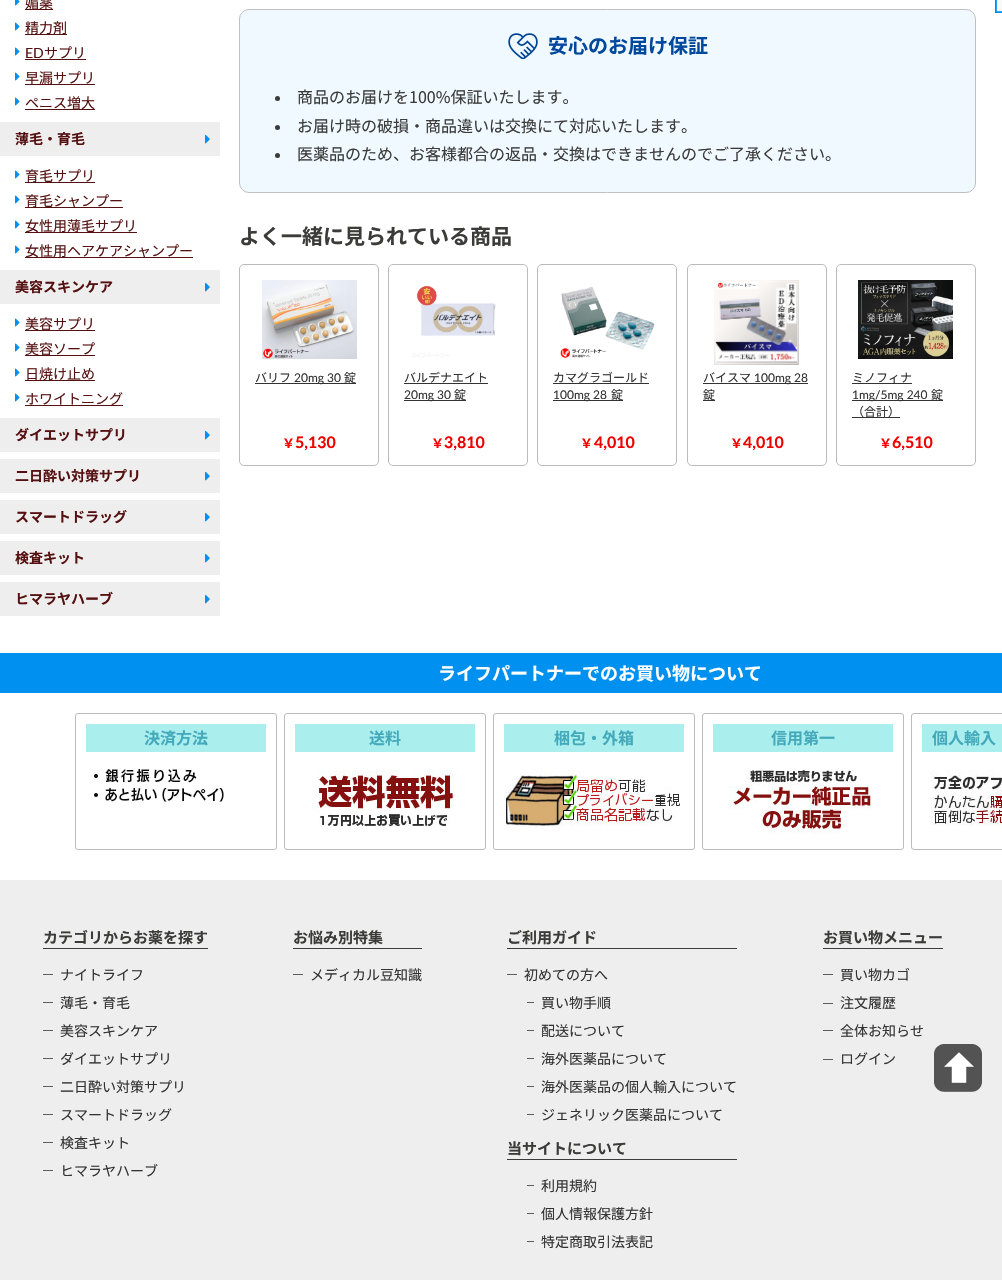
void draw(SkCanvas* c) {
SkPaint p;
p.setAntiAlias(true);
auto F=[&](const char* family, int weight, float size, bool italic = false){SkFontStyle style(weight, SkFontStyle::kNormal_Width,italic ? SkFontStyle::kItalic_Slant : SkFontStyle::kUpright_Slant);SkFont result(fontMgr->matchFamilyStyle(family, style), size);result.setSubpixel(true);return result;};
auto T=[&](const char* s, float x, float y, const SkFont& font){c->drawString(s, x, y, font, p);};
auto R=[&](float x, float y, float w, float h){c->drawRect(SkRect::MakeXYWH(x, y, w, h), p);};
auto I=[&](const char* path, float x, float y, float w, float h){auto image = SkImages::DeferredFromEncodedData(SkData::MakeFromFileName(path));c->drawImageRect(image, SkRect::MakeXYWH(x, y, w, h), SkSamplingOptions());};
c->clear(0xffffffff);
I("1.png",15,0,5,6);
p.setColor(0xff551111);
R(25,9,28,1);
auto f1 = F("Noto Sans JP",400,14);
T("媚薬",25,8,f1);
I("2.png",15,22,5,9);
R(25,34,42,1);
T("精力剤",25,33,f1);
I("2.png",15,47,5,9);
auto f2 = F("Lato",400,14);
T("ED",25,58,f2);
R(25,59,61,1);
T("サプリ",44,58,f1);
I("2.png",15,72,5,9);
R(25,84,70,1);
T("早漏サプリ",25,83,f1);
I("2.png",15,97,5,9);
R(25,109,70,1);
T("ペニス増大",25,108,f1);
p.setColor(0xffeeeeee);
R(0,122,220,34);
auto f3 = F("Noto Sans JP",700,14);
p.setColor(0xff551111);
T("薄毛・育毛",15,144,f3);
I("3.png",205,134,5,10);
I("2.png",15,170,5,9);
R(25,182,70,1);
T("育毛サプリ",25,181,f1);
I("2.png",15,195,5,9);
R(25,207,98,1);
T("育毛シャンプー",25,206,f1);
I("2.png",15,220,5,9);
R(25,232,112,1);
T("女性用薄毛サプリ",25,231,f1);
I("2.png",15,245,5,9);
R(25,257,168,1);
T("女性用ヘアケアシャンプー",25,256,f1);
p.setColor(0xffeeeeee);
R(0,270,220,34);
p.setColor(0xff551111);
T("美容スキンケア",15,292,f3);
I("3.png",205,282,5,10);
I("2.png",15,318,5,9);
R(25,330,70,1);
T("美容サプリ",25,329,f1);
I("2.png",15,343,5,9);
R(25,355,70,1);
T("美容ソープ",25,354,f1);
I("2.png",15,368,5,9);
R(25,380,70,1);
T("日焼け止め",25,379,f1);
I("2.png",15,393,5,9);
T("ホワイトニング",25,404,f1);
R(25,405,98,1);
p.setColor(0xffeeeeee);
R(0,418,220,34);
p.setColor(0xff551111);
T("ダイエットサプリ",15,440,f3);
I("3.png",205,430,5,10);
p.setColor(0xffeeeeee);
R(0,459,220,34);
p.setColor(0xff551111);
T("二日酔い対策サプリ",15,481,f3);
I("3.png",205,471,5,10);
p.setColor(0xffeeeeee);
R(0,500,220,34);
p.setColor(0xff551111);
T("スマートドラッグ",15,522,f3);
I("3.png",205,512,5,10);
p.setColor(0xffeeeeee);
R(0,541,220,34);
p.setColor(0xff551111);
T("検査キット",15,563,f3);
I("3.png",205,553,5,10);
p.setColor(0xffeeeeee);
R(0,582,220,34);
p.setColor(0xff551111);
T("ヒマラヤハーブ",15,604,f3);
I("3.png",205,594,5,10);
I("4.png",995,0,7,13);
p.setColor(0xfff0f9ff);
c->drawRoundRect(SkRect::MakeXYWH(239.5,9.5,736,183),9.5,9.5,p);
p.setStroke(true);
p.setStrokeWidth(1);
p.setColor(0xffc0c0c0);
c->drawRoundRect(SkRect::MakeXYWH(239.5,9.5,736,183),9.5,9.5,p);
I("5.png",508,33,30,26);
auto f4 = F("Noto Sans JP",700,20);
p.setStroke(false);
p.setColor(0xff00489d);
T("安心のお届け保証",548,53,f4);
p.setColor(0xff3b3b3a);
c->drawCircle(277.5,98.5,2.5,p);
auto f5 = F("Noto Sans JP",400,16);
T("商品のお届けを100%保証いたします。",297,103,f5);
c->drawCircle(277.5,127.5,2.5,p);
T("お届け時の破損・商品違いは交換にて対応いたします。",297,132,f5);
c->drawCircle(277.5,155.5,2.5,p);
T("医薬品のため、お客様都合の返品・交換はできませんのでご了承ください。",297,160,f5);
auto f6 = F("Noto Sans JP",700,21);
T("よく一緒に見られている商品",239,244,f6);
p.setStroke(true);
p.setColor(0xffbbbbbb);
c->drawRoundRect(SkRect::MakeXYWH(239.5,264.5,139,201),4.5,4.5,p);
I("6.png",262,280,95,79);
auto f7 = F("Noto Sans JP",400,12);
p.setStroke(false);
p.setColor(0xff333333);
T("バリフ",255,382,f7);
R(255,383,101,1);
auto f8 = F("Lato",400,12);
T("20mg 30",294,382,f8);
T("錠",344,382,f7);
auto f9 = F("Noto Sans JP",700,13);
p.setColor(0xffff0000);
T("￥",282,448,f9);
auto f10 = F("Lato",700,16);
p.setColor(0xffee0000);
T("5,130",295,448,f10);
p.setStroke(true);
p.setColor(0xffbbbbbb);
c->drawRoundRect(SkRect::MakeXYWH(388.5,264.5,139,201),4.5,4.5,p);
I("7.png",412,285,84,73);
p.setStroke(false);
p.setColor(0xff333333);
T("バルデナエイト",404,382,f7);
R(404,383,84,1);
R(404,400,62,1);
T("20mg 30",404,399,f8);
T("錠",454,399,f7);
p.setColor(0xffff0000);
T("￥",431,448,f9);
p.setColor(0xffee0000);
T("3,810",444,448,f10);
p.setStroke(true);
p.setColor(0xffbbbbbb);
c->drawRoundRect(SkRect::MakeXYWH(537.5,264.5,139,201),4.5,4.5,p);
I("8.png",560,287,95,71);
p.setStroke(false);
p.setColor(0xff333333);
T("カマグラゴールド",553,382,f7);
R(553,383,96,1);
R(553,400,70,1);
T("100mg 28",553,399,f8);
T("錠",611,399,f7);
p.setColor(0xffff0000);
T("￥",580,448,f9);
p.setColor(0xffee0000);
T("4,010",594,448,f10);
p.setStroke(true);
p.setColor(0xffbbbbbb);
c->drawRoundRect(SkRect::MakeXYWH(687.5,264.5,139,201),4.5,4.5,p);
I("9.png",714,280,85,85);
p.setStroke(false);
p.setColor(0xff333333);
T("バイスマ",703,382,f7);
R(703,383,105,1);
T("100mg 28",754,382,f8);
T("錠",703,399,f7);
R(703,400,12,1);
p.setColor(0xffff0000);
T("￥",730,448,f9);
p.setColor(0xffee0000);
T("4,010",743,448,f10);
p.setStroke(true);
p.setColor(0xffbbbbbb);
c->drawRoundRect(SkRect::MakeXYWH(836.5,264.5,139,201),4.5,4.5,p);
I("10.png",858,280,95,79);
p.setStroke(false);
p.setColor(0xff333333);
T("ミノフィナ",852,382,f7);
R(852,383,60,1);
R(852,400,91,1);
T("1mg/5mg 240",852,399,f8);
T("錠",931,399,f7);
R(852,417,48,1);
T("（合計）",852,416,f7);
p.setColor(0xffff0000);
T("￥",879,448,f9);
p.setColor(0xffee0000);
T("6,510",892,448,f10);
p.setColor(0xff0090f0);
R(0,653,1002,40);
auto f11 = F("Noto Sans JP",700,18);
p.setColor(0xffffffff);
T("ライフパートナーでのお買い物について",438,680,f11);
p.setStroke(true);
p.setColor(0xffbbbbbb);
c->drawRoundRect(SkRect::MakeXYWH(75.5,713.5,201,136),2.5,2.5,p);
p.setStroke(false);
p.setColor(0xffaaeeee);
R(86,724,180,28);
auto f12 = F("Noto Sans JP",700,16);
p.setColor(0xff44aabb);
T("決済方法",144,744,f12);
I("11.png",94,769,130,33);
p.setStroke(true);
p.setColor(0xffbbbbbb);
c->drawRoundRect(SkRect::MakeXYWH(284.5,713.5,201,136),2.5,2.5,p);
p.setStroke(false);
p.setColor(0xffaaeeee);
R(295,724,180,28);
p.setColor(0xff44aabb);
T("送料",369,744,f12);
I("12.png",311,770,144,57);
p.setStroke(true);
p.setColor(0xffbbbbbb);
c->drawRoundRect(SkRect::MakeXYWH(493.5,713.5,201,136),2.5,2.5,p);
p.setStroke(false);
p.setColor(0xffaaeeee);
R(504,724,180,28);
p.setColor(0xff44aabb);
T("梱包・外箱",554,744,f12);
I("13.png",504,770,176,58);
p.setStroke(true);
p.setColor(0xffbbbbbb);
c->drawRoundRect(SkRect::MakeXYWH(702.5,713.5,201,136),2.5,2.5,p);
p.setStroke(false);
p.setColor(0xffaaeeee);
R(713,724,180,28);
p.setColor(0xff44aabb);
T("信用第一",771,744,f12);
I("14.png",729,770,144,64);
p.setStroke(true);
p.setColor(0xffbbbbbb);
c->drawRoundRect(SkRect::MakeXYWH(911.5,713.5,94,136),2.5,2.5,p);
p.setStroke(false);
p.setColor(0xffaaeeee);
R(922,724,80,28);
p.setColor(0xff44aabb);
T("個人輸入",932,744,f12);
I("15.png",930,770,72,56);
p.setColor(0xffeeeeee);
R(0,880,1002,400);
p.setColor(0xff3b3b3a);
R(43,948,165,1);
auto f13 = F("Noto Sans JP",700,15);
T("カテゴリからお薬を探す",43,943,f13);
p.setColor(0xff5e5e5e);
R(43,974,10,1);
p.setColor(0xff333333);
T("ナイトライフ",60,980,f1);
p.setColor(0xff5e5e5e);
R(43,1002,10,1);
p.setColor(0xff333333);
T("薄毛・育毛",60,1008,f1);
p.setColor(0xff5e5e5e);
R(43,1030,10,1);
p.setColor(0xff333333);
T("美容スキンケア",60,1036,f1);
p.setColor(0xff5e5e5e);
R(43,1058,10,1);
p.setColor(0xff333333);
T("ダイエットサプリ",60,1064,f1);
p.setColor(0xff5e5e5e);
R(43,1086,10,1);
p.setColor(0xff333333);
T("二日酔い対策サプリ",60,1092,f1);
p.setColor(0xff5e5e5e);
R(43,1114,10,1);
p.setColor(0xff333333);
T("スマートドラッグ",60,1120,f1);
p.setColor(0xff5e5e5e);
R(43,1142,10,1);
p.setColor(0xff333333);
T("検査キット",60,1148,f1);
p.setColor(0xff5e5e5e);
R(43,1170,10,1);
p.setColor(0xff333333);
T("ヒマラヤハーブ",60,1176,f1);
p.setColor(0xff3b3b3a);
R(293,948,129,1);
T("お悩み別特集",293,943,f13);
p.setColor(0xff5e5e5e);
R(293,974,10,1);
p.setColor(0xff333333);
T("メディカル豆知識",310,980,f1);
p.setColor(0xff3b3b3a);
R(507,948,230,1);
T("ご利用ガイド",507,943,f13);
p.setColor(0xff5e5e5e);
R(507,974,10,1);
p.setColor(0xff333333);
T("初めての方へ",524,980,f1);
p.setColor(0xff5e5e5e);
R(527,1002,7,1);
p.setColor(0xff333333);
T("買い物手順",541,1008,f1);
p.setColor(0xff5e5e5e);
R(527,1030,7,1);
p.setColor(0xff333333);
T("配送について",541,1036,f1);
p.setColor(0xff5e5e5e);
R(527,1058,7,1);
p.setColor(0xff333333);
T("海外医薬品について",541,1064,f1);
p.setColor(0xff5e5e5e);
R(527,1086,7,1);
p.setColor(0xff333333);
T("海外医薬品の個人輸入について",541,1092,f1);
p.setColor(0xff5e5e5e);
R(527,1114,7,1);
p.setColor(0xff333333);
T("ジェネリック医薬品について",541,1120,f1);
p.setColor(0xff3b3b3a);
R(507,1159,230,1);
T("当サイトについて",507,1154,f13);
p.setColor(0xff5e5e5e);
R(527,1185,7,1);
p.setColor(0xff333333);
T("利用規約",541,1191,f1);
p.setColor(0xff5e5e5e);
R(527,1213,7,1);
p.setColor(0xff333333);
T("個人情報保護方針",541,1219,f1);
p.setColor(0xff5e5e5e);
R(527,1241,7,1);
p.setColor(0xff333333);
T("特定商取引法表記",541,1247,f1);
p.setColor(0xff3b3b3a);
R(823,948,120,1);
T("お買い物メニュー",823,943,f13);
p.setColor(0xff5e5e5e);
R(823,974,10,1);
p.setColor(0xff333333);
T("買い物カゴ",840,980,f1);
p.setColor(0xff5e5e5e);
R(823,1003,10,1);
p.setColor(0xff333333);
T("注文履歴",840,1008,f1);
p.setColor(0xff5e5e5e);
R(823,1030,10,1);
p.setColor(0xff333333);
T("全体お知らせ",840,1036,f1);
p.setColor(0xff5e5e5e);
R(823,1059,10,1);
p.setColor(0xff333333);
T("ログイン",840,1064,f1);
I("16.png",934,1044,48,48);
}
